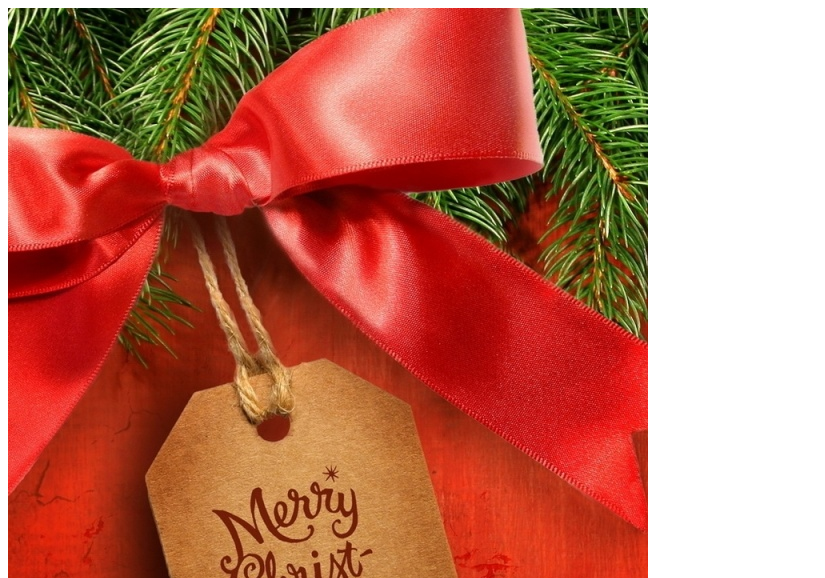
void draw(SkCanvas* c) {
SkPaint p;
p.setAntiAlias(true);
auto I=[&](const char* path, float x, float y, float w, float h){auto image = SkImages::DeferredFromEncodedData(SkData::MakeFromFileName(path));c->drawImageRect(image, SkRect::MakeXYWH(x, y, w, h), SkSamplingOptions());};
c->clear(0xffffffff);
I("1.png",8,8,640,570);
}
